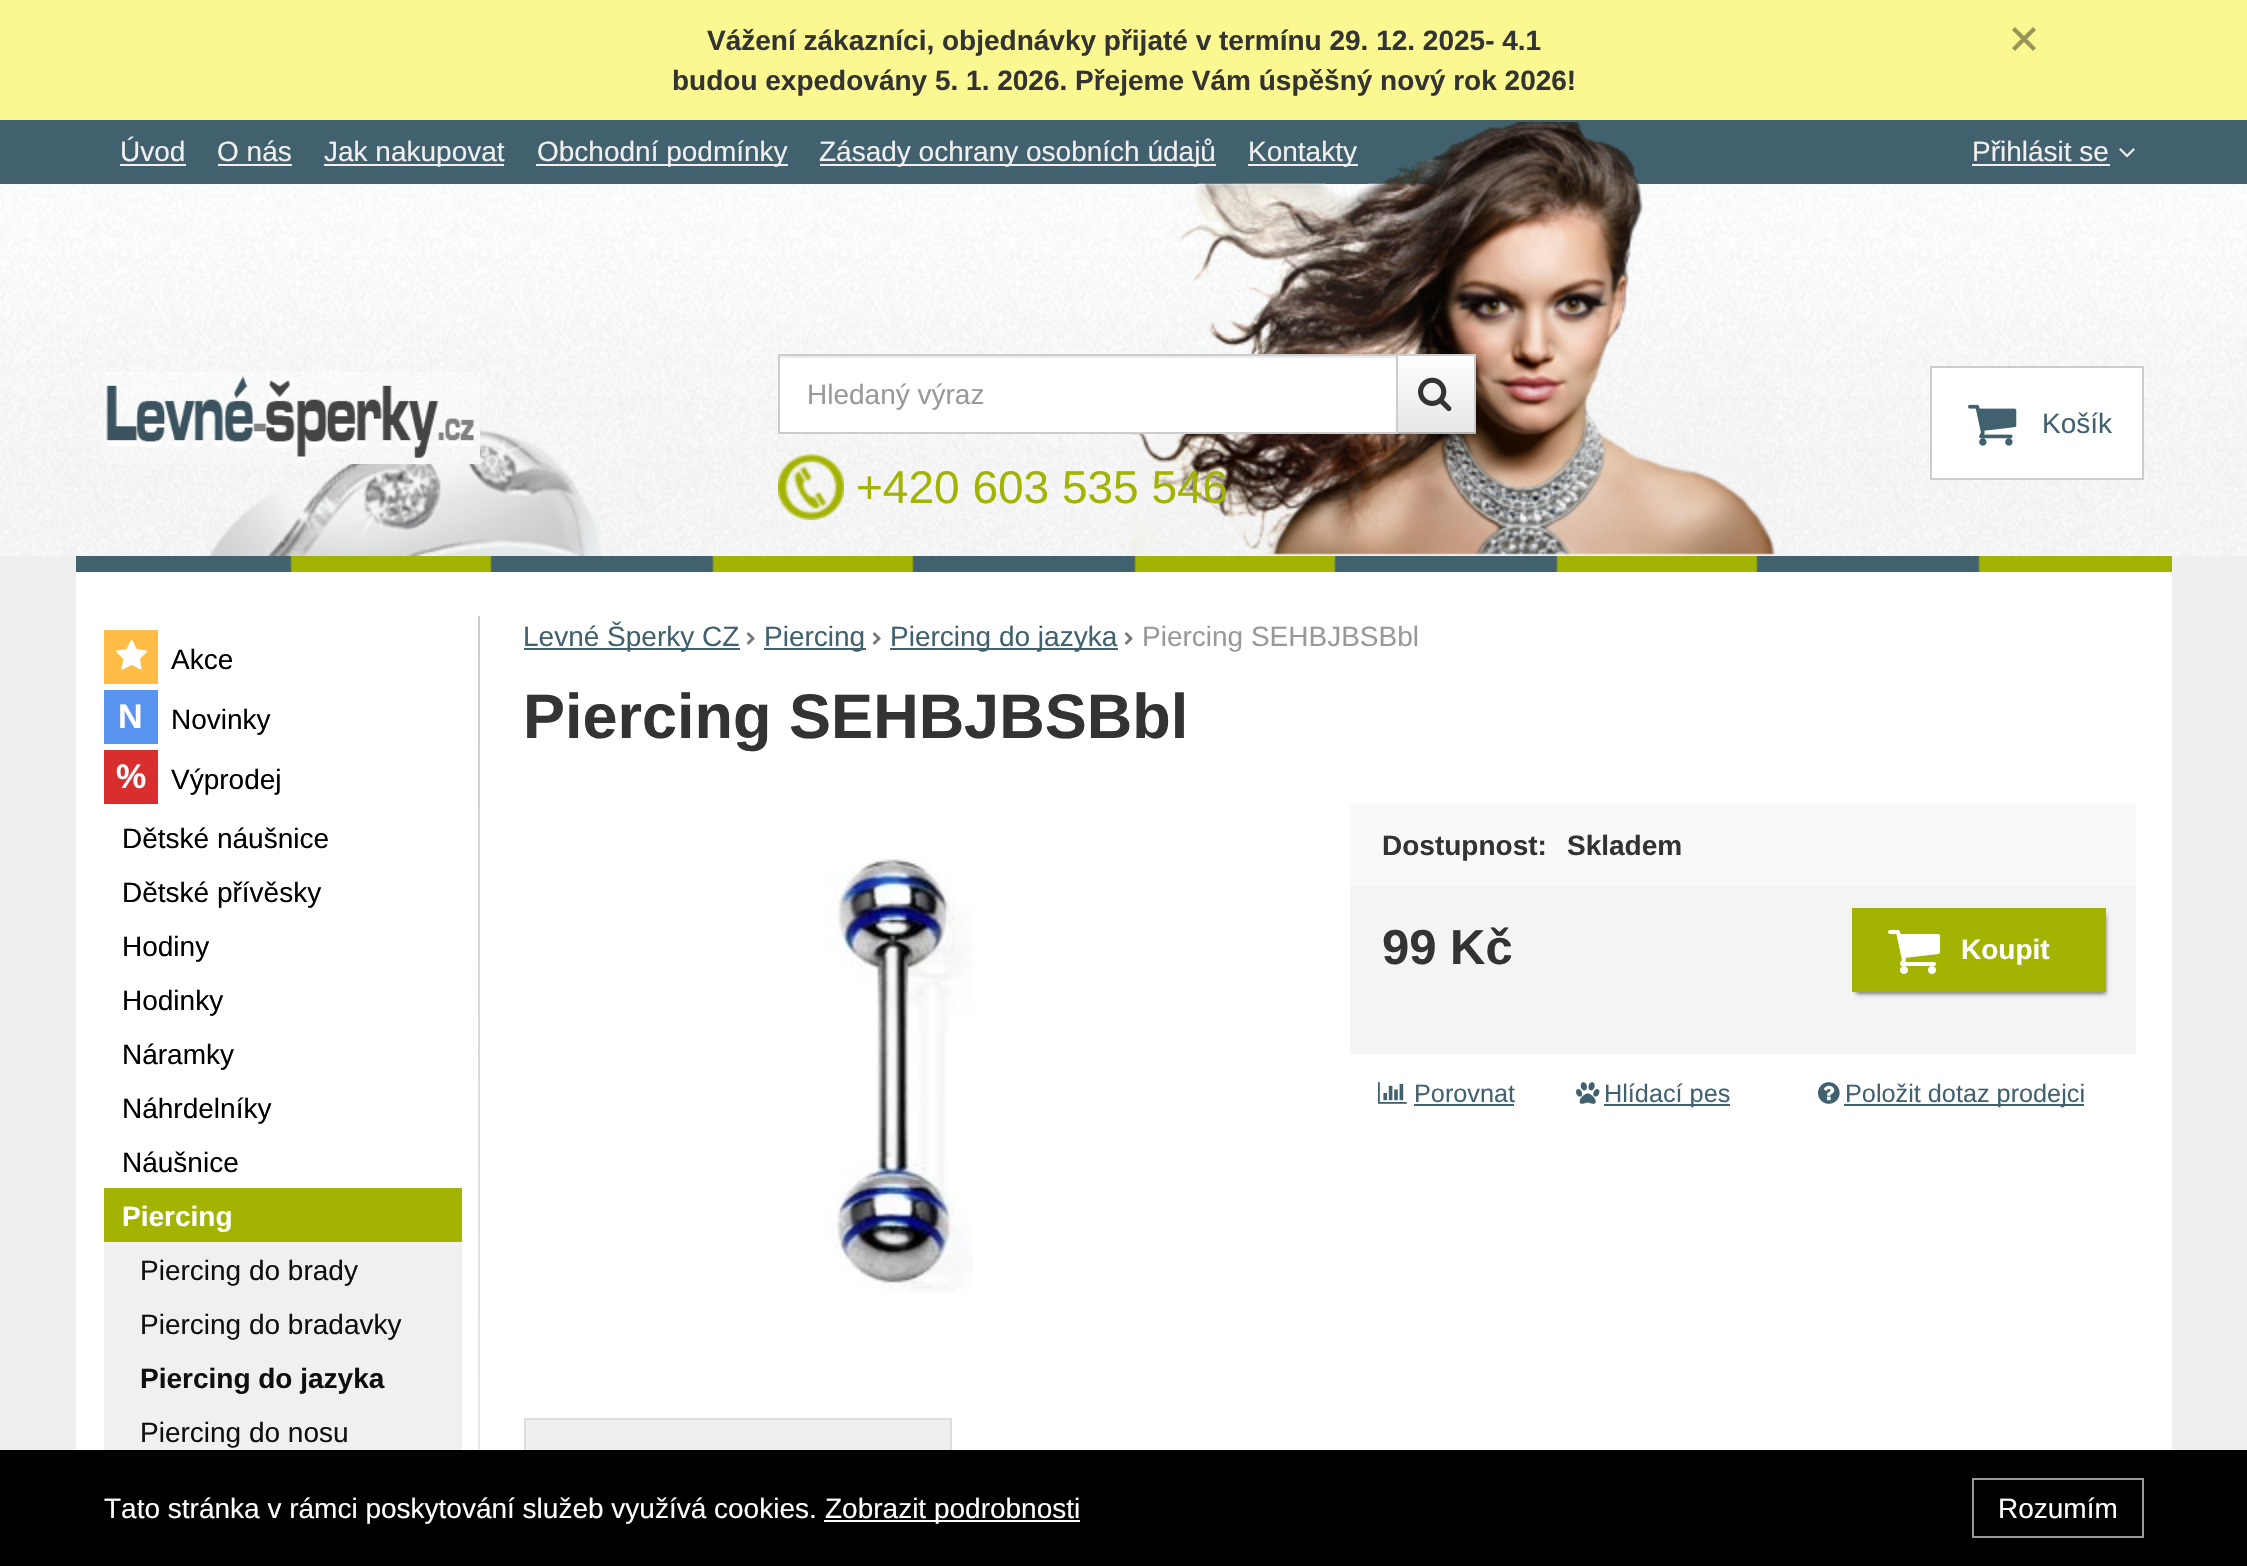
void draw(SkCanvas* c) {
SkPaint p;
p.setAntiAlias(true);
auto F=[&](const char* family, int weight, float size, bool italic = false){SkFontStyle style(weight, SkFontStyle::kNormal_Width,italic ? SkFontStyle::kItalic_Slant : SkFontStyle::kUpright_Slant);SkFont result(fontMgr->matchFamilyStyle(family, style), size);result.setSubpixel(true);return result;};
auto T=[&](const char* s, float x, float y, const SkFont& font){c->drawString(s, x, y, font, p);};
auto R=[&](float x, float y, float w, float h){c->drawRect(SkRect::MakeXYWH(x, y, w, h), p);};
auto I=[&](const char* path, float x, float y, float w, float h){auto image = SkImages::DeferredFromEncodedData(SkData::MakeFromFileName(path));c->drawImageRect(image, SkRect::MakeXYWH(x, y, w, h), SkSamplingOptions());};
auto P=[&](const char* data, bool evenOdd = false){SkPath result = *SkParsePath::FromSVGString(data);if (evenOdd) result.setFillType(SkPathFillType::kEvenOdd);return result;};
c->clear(0xffefefef);
p.setColor(0xfffbf892);
R(0,0,2247,120);
auto f1 = F("Liberation Sans",700,28);
p.setColor(0xff333333);
T("Vážení zákazníci, objednávky přijaté v termínu 29. 12. 2025- 4.1",707,50,f1);
T("budou expedovány 5. 1. 2026. Přejeme Vám úspěšný nový rok 2026!",672,90,f1);
p.setColor(0xff979558);
c->drawPath(P("M2033 27l3 3l-21 21l-3-3z"),p);
c->drawPath(P("M2012 30l3-3l21 21l-3 3z"),p);
I("1.png",0,184,2247,372);
p.setColor(0xff41616e);
R(0,120,2247,64);
I("2.png",1124,122,652,434);
auto f2 = F("Liberation Sans",400,28);
p.setColor(0xfff0f0f0);
T("Úvod",120,161,f2);
R(120,164,66,2);
T("O nás",217,161,f2);
R(218,164,74,2);
R(324,164,180,2);
T("Jak nakupovat",324,161,f2);
R(536,164,252,2);
T("Obchodní podmínky",537,161,f2);
R(820,164,396,2);
T("Zásady ochrany osobních údajů",819,161,f2);
R(1248,164,110,2);
T("Kontakty",1248,161,f2);
T("Přihlásit se",1972,161,f2);
R(1972,164,138,2);
I("3.png",2119,148,16,10);
I("4.png",204,420,418,136);
I("5.png",104,372,376,92);
p.setColor(0x0d000000);
p.setMaskFilter(SkMaskFilter::MakeBlur(kNormal_SkBlurStyle, 2));
c->drawRect(SkRect::MakeXYWH(1396,356,80,80),p);
p.setMaskFilter(nullptr);
p.setColor(0xffffffff);
R(780,358,616,74);
p.setColor(0xffececec);
R(780,356,616,2);
p.setColor(0xffcccccc);
R(1396,354,80,2);
R(1474,354,2,80);
p.setColor(0xffb3b3b3);
R(1396,432,80,2);
p.setStroke(true);
p.setStrokeWidth(2);
p.setColor(0xffcccccc);
c->drawRect(SkRect::MakeXYWH(779,355,618,78),p);
p.setStroke(false);
p.setColor(0xff999999);
T("Hledaný výraz",807,404,f2);
{
const SkColor colors[] = {0xffffffff,0xffe6e6e6};
const float stops[] = {0,1};
const SkPoint ends[] = {{1436,356}, {1436,432}};
p.setShader(SkGradientShader::MakeLinear(ends, colors, stops, 2, SkTileMode::kClamp));
p.setAlpha(255);
}
R(1398,356,76,76);
I("6.png",1418,377,34,35);
I("7.png",778,454,66,66);
auto f3 = F("Liberation Sans",400,46);
p.setShader(nullptr);
p.setColor(0xffa2b302);
T("+420 603 535 546",856,503,f3);
p.setColor(0xffffffff);
c->drawRect(SkRect::MakeXYWH(1931,367,212,112),p);
p.setStroke(true);
p.setColor(0xffcccccc);
c->drawRect(SkRect::MakeXYWH(1931,367,212,112),p);
I("8.png",1968,404,49,42);
p.setStroke(false);
p.setColor(0xff41616e);
T("Košík",2042,433,f2);
p.setColor(0xffffffff);
R(76,572,2096,878);
I("9.png",76,556,2096,16);
p.setColor(0xffffbc46);
R(104,630,54,54);
I("10.png",116,639,32,31);
p.setColor(0xff000000);
T("Akce",171,669,f2);
p.setColor(0xff5894ef);
R(104,690,54,54);
auto f4 = F("Liberation Sans",700,34);
p.setColor(0xffffffff);
T("N",118,728,f4);
p.setColor(0xff000000);
T("Novinky",171,729,f2);
p.setColor(0xffd82e2e);
R(104,750,54,54);
p.setColor(0xffffffff);
T("%",116,788,f4);
p.setColor(0xff000000);
T("Výprodej",171,789,f2);
T("Dětské náušnice",122,848,f2);
T("Dětské přívěsky",122,902,f2);
T("Hodiny",122,956,f2);
T("Hodinky",122,1010,f2);
T("Náramky",122,1064,f2);
T("Náhrdelníky",122,1118,f2);
T("Náušnice",122,1172,f2);
p.setColor(0xffa2b302);
R(104,1188,358,54);
p.setColor(0xffffffff);
T("Piercing",122,1226,f1);
p.setColor(0xfff0f0f0);
R(104,1242,358,208);
p.setColor(0xff0f0f0f);
T("Piercing do brady",140,1280,f2);
T("Piercing do bradavky",140,1334,f2);
T("Piercing do jazyka",140,1388,f1);
T("Piercing do nosu",140,1442,f2);
{
const SkColor colors[] = {0xffcccccc,0xffffffff};
const float stops[] = {0,1};
const SkPoint ends[] = {{479,616}, {479,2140}};
p.setShader(SkGradientShader::MakeLinear(ends, colors, stops, 2, SkTileMode::kClamp));
p.setAlpha(255);
}
R(478,616,2,834);
p.setShader(nullptr);
p.setColor(0xff41616e);
R(524,648,216,2);
T("Levné Šperky CZ",523,646,f2);
I("11.png",746,632,9,13);
R(764,648,102,2);
T("Piercing",764,646,f2);
I("11.png",872,632,9,13);
R(890,648,228,2);
T("Piercing do jazyka",890,646,f2);
I("11.png",1124,632,9,13);
p.setColor(0xff999999);
T("Piercing SEHBJBSBbl",1142,646,f2);
auto f5 = F("Liberation Sans",700,63);
p.setColor(0xff333333);
T("Piercing SEHBJBSBbl",523,738,f5);
I("12.png",821,857,152,435);
p.setColor(0xfff9f9f9);
R(1350,804,786,82);
p.setColor(0xff333333);
T("Dostupnost:",1382,855,f1);
T("Skladem",1567,855,f1);
p.setColor(0xfff4f4f4);
R(1350,886,786,168);
auto f6 = F("Liberation Sans",700,49);
p.setColor(0xff333333);
T("99 Kč",1382,964,f6);
p.setColor(0x80000000);
p.setMaskFilter(SkMaskFilter::MakeBlur(kNormal_SkBlurStyle, 2));
c->drawRect(SkRect::MakeXYWH(1856,914,250,80),p);
p.setMaskFilter(nullptr);
p.setColor(0xffa2b302);
R(1852,908,254,84);
I("13.png",1888,930,52,44);
p.setColor(0xffffffff);
T("Koupit",1961,959,f1);
I("14.png",1378,1082,29,22);
auto f7 = F("Liberation Sans",400,25.25);
p.setColor(0xff41616e);
T("Porovnat",1414,1102,f7);
R(1414,1104,100,2);
I("15.png",1576,1082,24,22);
R(1604,1104,126,2);
T("Hlídací pes",1604,1102,f7);
I("16.png",1818,1082,22,22);
R(1844,1104,240,2);
T("Položit dotaz prodejci",1845,1102,f7);
p.setColor(0xffefefef);
R(526,1420,424,30);
p.setColor(0xffdddddd);
R(524,1418,428,2);
c->drawPath(P("M952 1418v76l-2-2v-72z"),p);
c->drawPath(P("M524 1494v-76l2 2v72z"),p);
p.setColor(0xff000000);
R(0,1450,2247,116);
p.setColor(0xffffffff);
T("Tato stránka v rámci poskytování služeb využívá cookies.",104,1518,f2);
R(824,1520,256,2);
T("Zobrazit podrobnosti",825,1518,f2);
p.setStroke(true);
p.setColor(0xff999999);
c->drawRect(SkRect::MakeXYWH(1973,1479,170,58),p);
p.setStroke(false);
p.setColor(0xffffffff);
T("Rozumím",1998,1518,f2);
}
